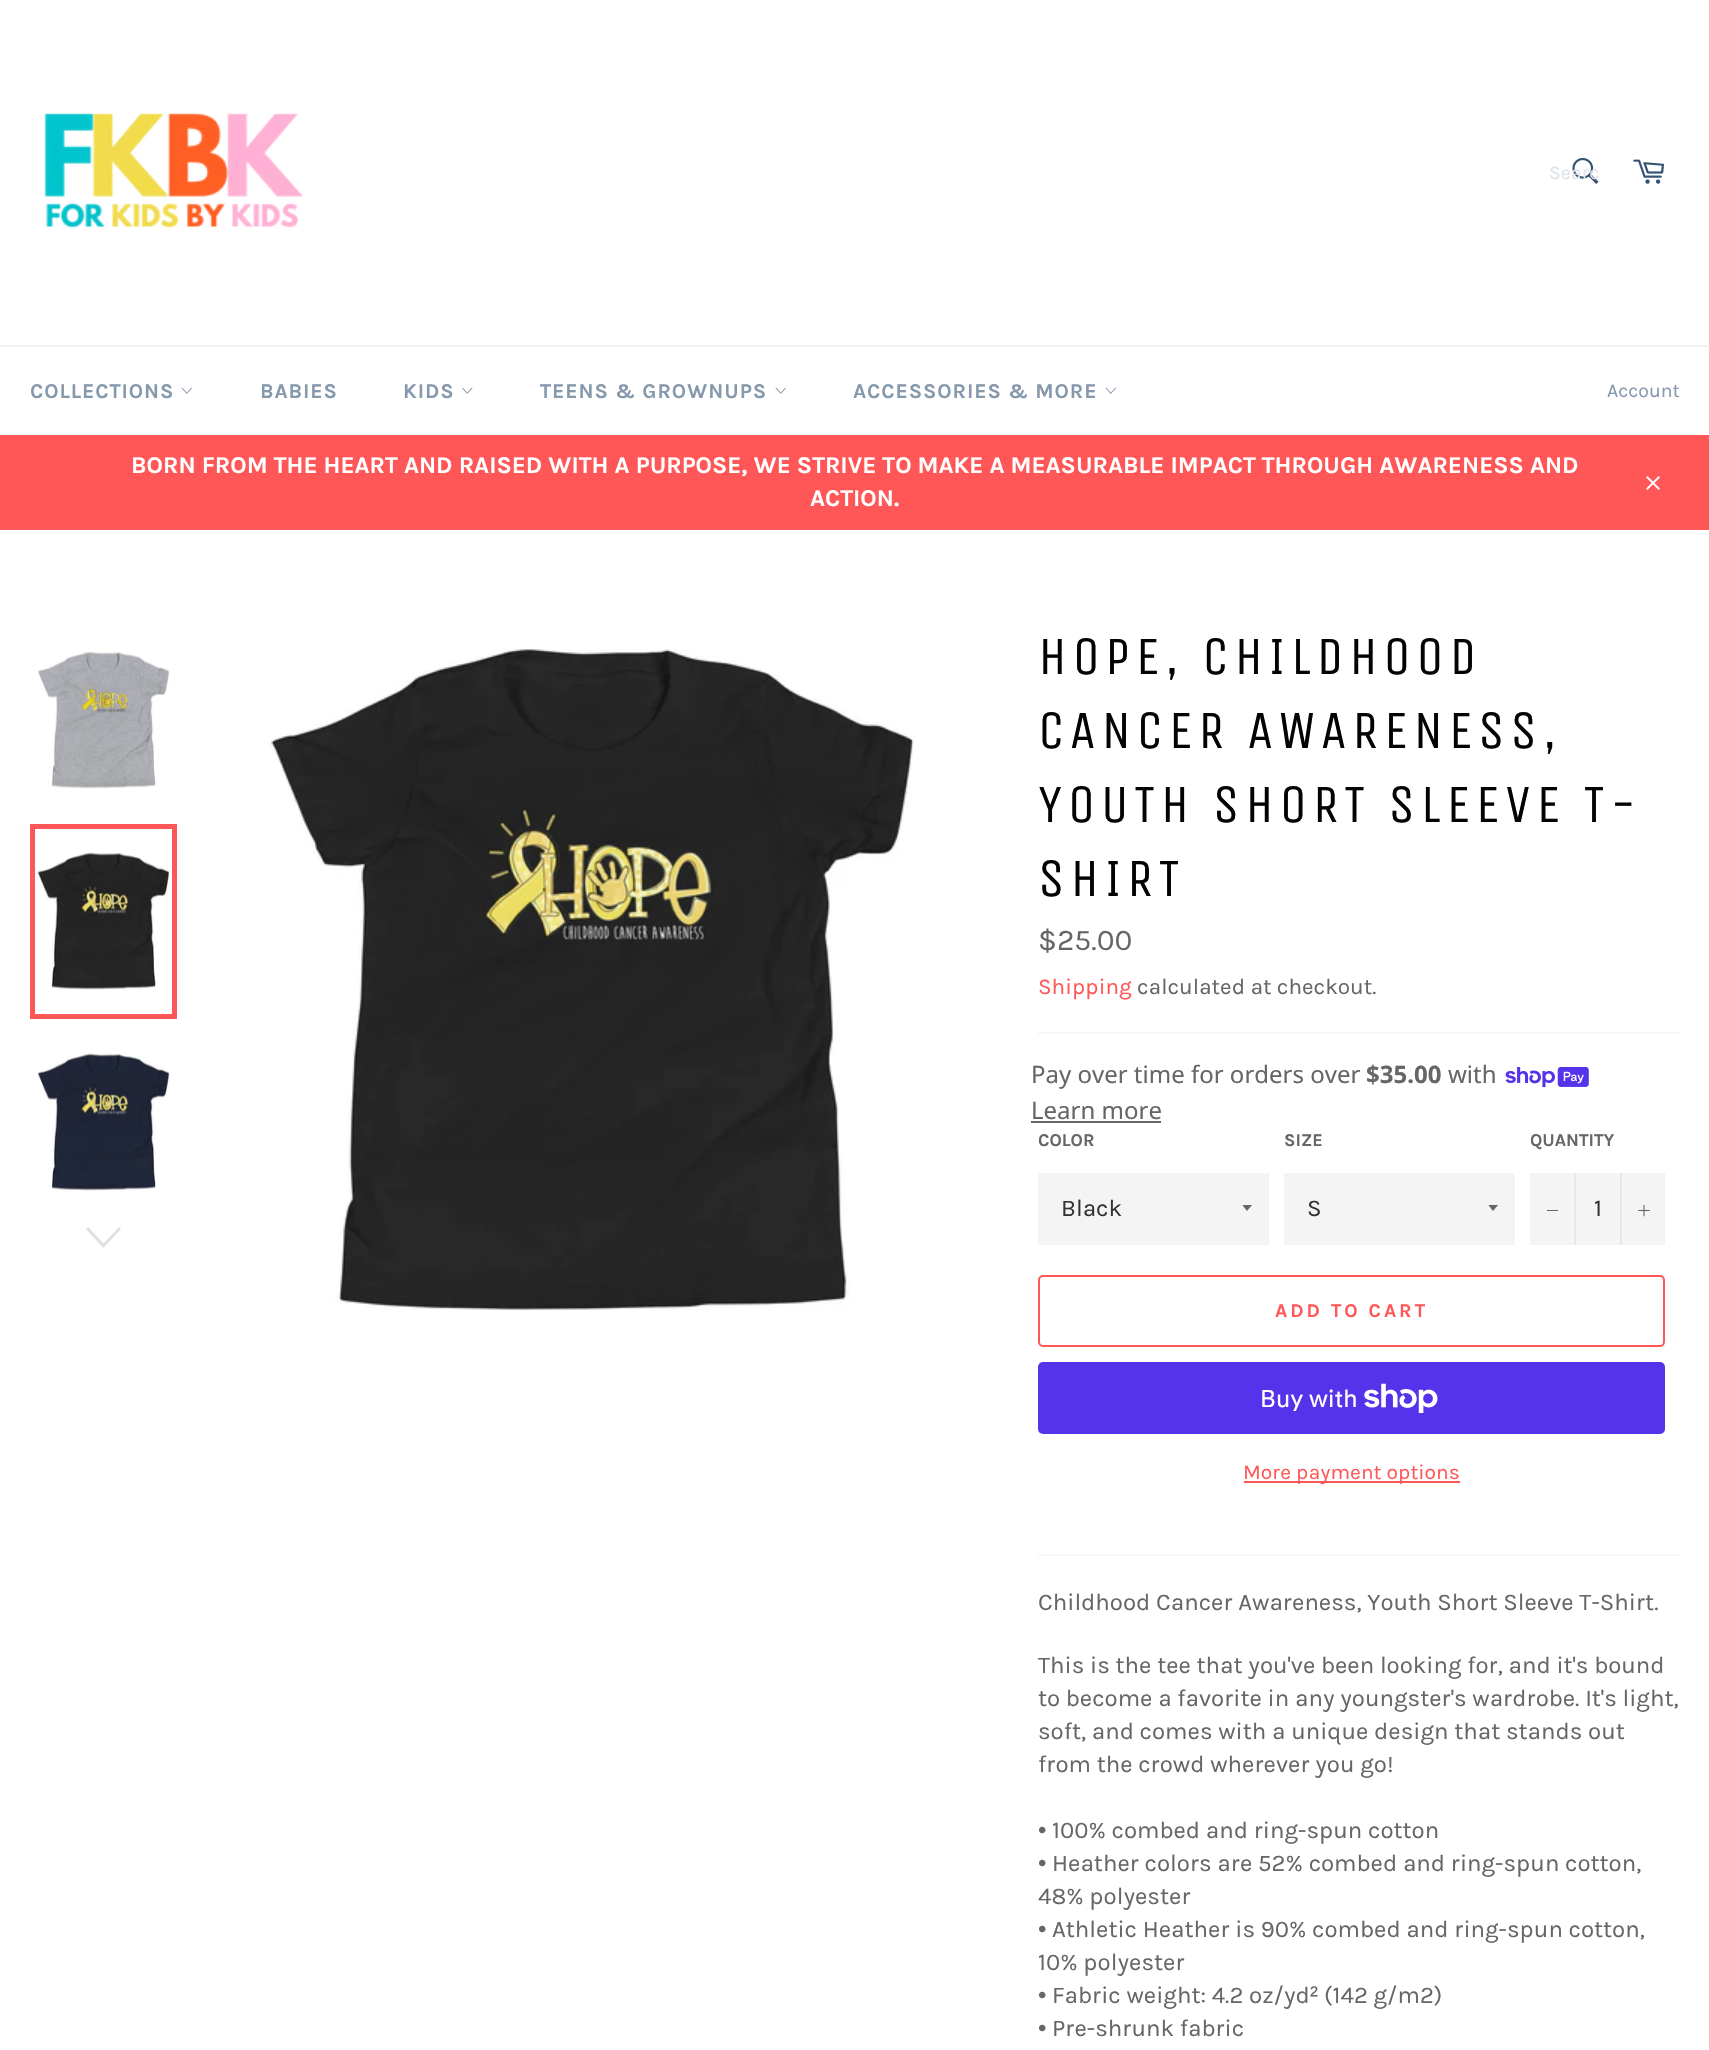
void draw(SkCanvas* c) {
SkPaint p;
p.setAntiAlias(true);
auto F=[&](const char* family, int weight, float size, bool italic = false){SkFontStyle style(weight, SkFontStyle::kNormal_Width,italic ? SkFontStyle::kItalic_Slant : SkFontStyle::kUpright_Slant);SkFont result(fontMgr->matchFamilyStyle(family, style), size);result.setSubpixel(true);return result;};
auto T=[&](const char* s, float x, float y, const SkFont& font){c->drawString(s, x, y, font, p);};
auto L=[&](const char* s, float x, float y, const SkFont& font, const SkPaint& ink, float letter, float word){std::vector<SkGlyphID> glyphs(font.countText(s, strlen(s), SkTextEncoding::kUTF8));std::vector<float> xs(glyphs.size());font.textToGlyphs(s, strlen(s), SkTextEncoding::kUTF8, glyphs);font.getXPos(glyphs, xs, x);float extra = 0;for (size_t i = 0; i < glyphs.size(); i++) {xs[i] += extra;extra += letter + word * (glyphs[i] == font.unicharToGlyph(' '));}c->drawTextBlob(SkTextBlob::MakeFromPosHGlyphs(glyphs, xs, y, font), 0, 0, ink);};
auto R=[&](float x, float y, float w, float h){c->drawRect(SkRect::MakeXYWH(x, y, w, h), p);};
auto Q=[&](float x, float y, float w, float h, float radius){c->drawRoundRect(SkRect::MakeXYWH(x, y, w, h), radius, radius, p);};
auto I=[&](const char* path, float x, float y, float w, float h){auto image = SkImages::DeferredFromEncodedData(SkData::MakeFromFileName(path));c->drawImageRect(image, SkRect::MakeXYWH(x, y, w, h), SkSamplingOptions());};
auto P=[&](const char* data, bool evenOdd = false){SkPath result = *SkParsePath::FromSVGString(data);if (evenOdd) result.setFillType(SkPathFillType::kEvenOdd);return result;};
c->clear(0xffffffff);
I("1.png",44,112,259,117);
I("2.png",1572,157,27,27);
c->save();
c->clipRect(SkRect::MakeXYWH(1550,162,48,23));
auto f1 = F("Karla",400,19.5);
p.setColor(0xffdfe4e9);
T("Searc",1549,179,f1);
c->restore();
I("3.png",1633,159,31,25);
p.setColor(0xfff2f2f2);
R(0,345,1709,2);
auto f2 = F("Karla",700,21);
p.setColor(0xff8598ac);
L("COLLECTIONS",30,398,f2,p,.9,0);
I("4.png",181,387,11,7);
L("BABIES",260,398,f2,p,.9,0);
L("KIDS",403,398,f2,p,.9,0);
I("5.png",462,387,11,7);
L("TEENS & GROWNUPS",540,398,f2,p,.9,0);
I("4.png",775,387,11,7);
L("ACCESSORIES & MORE",853,398,f2,p,.9,0);
I("4.png",1105,387,11,7);
T("Account",1607,397,f1);
p.setColor(0xffff5757);
R(0,435,1709,95);
auto f3 = F("Karla",700,24);
p.setColor(0xffffffff);
T("BORN FROM THE HEART AND RAISED WITH A PURPOSE, WE STRIVE TO MAKE A MEASURABLE IMPACT THROUGH AWARENESS AND",131,473,f3);
T("ACTION.",810,506,f3);
I("6.png",1646,476,14,14);
I("7.png",37,651,133,138);
I("8.png",37,852,133,138);
p.setStroke(true);
p.setStrokeWidth(5);
p.setColor(0xffff5757);
c->drawRect(SkRect::MakeXYWH(32.5,826.5,142,190),p);
I("9.png",37,1053,133,138);
p.setStroke(false);
p.setColor(0xffe0e0e0);
c->drawPath(P("M119 1227l2 2l-17.5 19l-17.5-19l2-2l15.5 16.5z"),p);
I("10.png",269,649,645,661);
auto f4 = F("Unica One",400,54);
p.setColor(0xff030303);
L("HOPE, CHILDHOOD",1038,674,f4,p,5.4,0);
L("CANCER AWARENESS,",1038,748,f4,p,5.4,0);
L("YOUTH SHORT SLEEVE T-",1038,822,f4,p,5.4,0);
L("SHIRT",1038,896,f4,p,5.4,0);
auto f5 = F("Karla",400,30);
p.setColor(0xff666666);
T("$25.00",1038,950,f5);
auto f6 = F("Karla",400,22.5);
p.setColor(0xffff5757);
T("Shipping",1038,994,f6);
p.setColor(0xff666666);
T("calculated at checkout.",1137,994,f6);
p.setColor(0xfff7f7f7);
R(1038,1032,642,2);
auto f7 = F("Noto Sans",400,24);
p.setColor(0xff666666);
T("Pay over time for orders over",1031,1083,f7);
auto f8 = F("Noto Sans",700,24);
T("$35.00",1366,1083,f8);
T("with",1448,1083,f7);
I("11.png",1505,1067,84,21);
T("Learn more",1031,1119,f7);
R(1031,1121,130,2);
auto f9 = F("Karla",700,18);
T("COLOR",1038,1146,f9);
p.setColor(0xfff4f4f4);
R(1038,1173,231,72);
c->save();
c->clipRect(SkRect::MakeXYWH(1242,1205,12,7));
p.setColor(0xff666666);
c->drawPath(P("M1242 1204.5l5 6.5l5.5-6.5z"),p);
c->restore();
auto f10 = F("Karla",400,24);
p.setColor(0xff333333);
T("Black",1061,1216,f10);
p.setColor(0xff666666);
T("SIZE",1284,1146,f9);
p.setColor(0xfff4f4f4);
R(1284,1173,231,72);
c->save();
c->clipRect(SkRect::MakeXYWH(1488,1205,12,7));
p.setColor(0xff666666);
c->drawPath(P("M1488 1204.5l5 6.5l5.5-6.5z"),p);
c->restore();
p.setColor(0xff333333);
T("S",1307,1216,f10);
p.setColor(0xff666666);
T("QUANTITY",1530,1146,f9);
p.setColor(0xfff4f4f4);
R(1530,1173,135,72);
p.setColor(0xffe7e7e7);
R(1574,1173,2,72);
p.setColor(0xff666666);
R(1547,1210,11,1);
p.setColor(0xff333333);
T("1",1594,1216,f10);
p.setColor(0xffe7e7e7);
R(1620,1173,2,72);
I("12.png",1638,1205,12,12);
p.setStroke(true);
p.setStrokeWidth(2);
p.setColor(0xffff5757);
c->drawRoundRect(SkRect::MakeXYWH(1039,1276,625,70),4,4,p);
auto f11 = F("Karla",700,19.5);
p.setStroke(false);
L("ADD TO CART",1275,1317,f11,p,3,0);
p.setColor(0xff5433eb);
Q(1038,1362,627,72,5);
auto f12 = F("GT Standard",400,24);
p.setColor(0xffffffff);
T("Buy with",1260,1407,f12);
I("13.png",1364,1383,74,30);
p.setColor(0xffff5757);
R(1244,1481,216,2);
auto f13 = F("Karla",400,21);
T("More payment options",1243,1479,f13);
p.setColor(0xfff7f7f7);
R(1038,1554,642,2);
p.setColor(0xff666666);
T("Childhood Cancer Awareness, Youth Short Sleeve T-Shirt.",1038,1610,f10);
T("This is the tee that you've been looking for, and it's bound",1038,1673,f10);
T("to become a favorite in any youngster's wardrobe. It's light,",1038,1706,f10);
T("soft, and comes with a unique design that stands out",1038,1739,f10);
T("from the crowd wherever you go!",1038,1772,f10);
auto f14 = F("Liberation Sans",400,24);
T("•",1038,1838,f14);
T("100% combed and ring-spun cotton",1052,1838,f10);
T("•",1038,1871,f14);
T("Heather colors are 52% combed and ring-spun cotton,",1052,1871,f10);
T("48% polyester",1038,1904,f10);
T("•",1038,1937,f14);
T("Athletic Heather is 90% combed and ring-spun cotton,",1052,1937,f10);
T("10% polyester",1038,1970,f10);
T("•",1038,2003,f14);
T("Fabric weight: 4.2 oz/yd",1052,2003,f10);
T("²",1310,2003,f14);
T("(142 g/m2)",1324,2003,f10);
T("•",1038,2036,f14);
T("Pre-shrunk fabric",1052,2036,f10);
}
